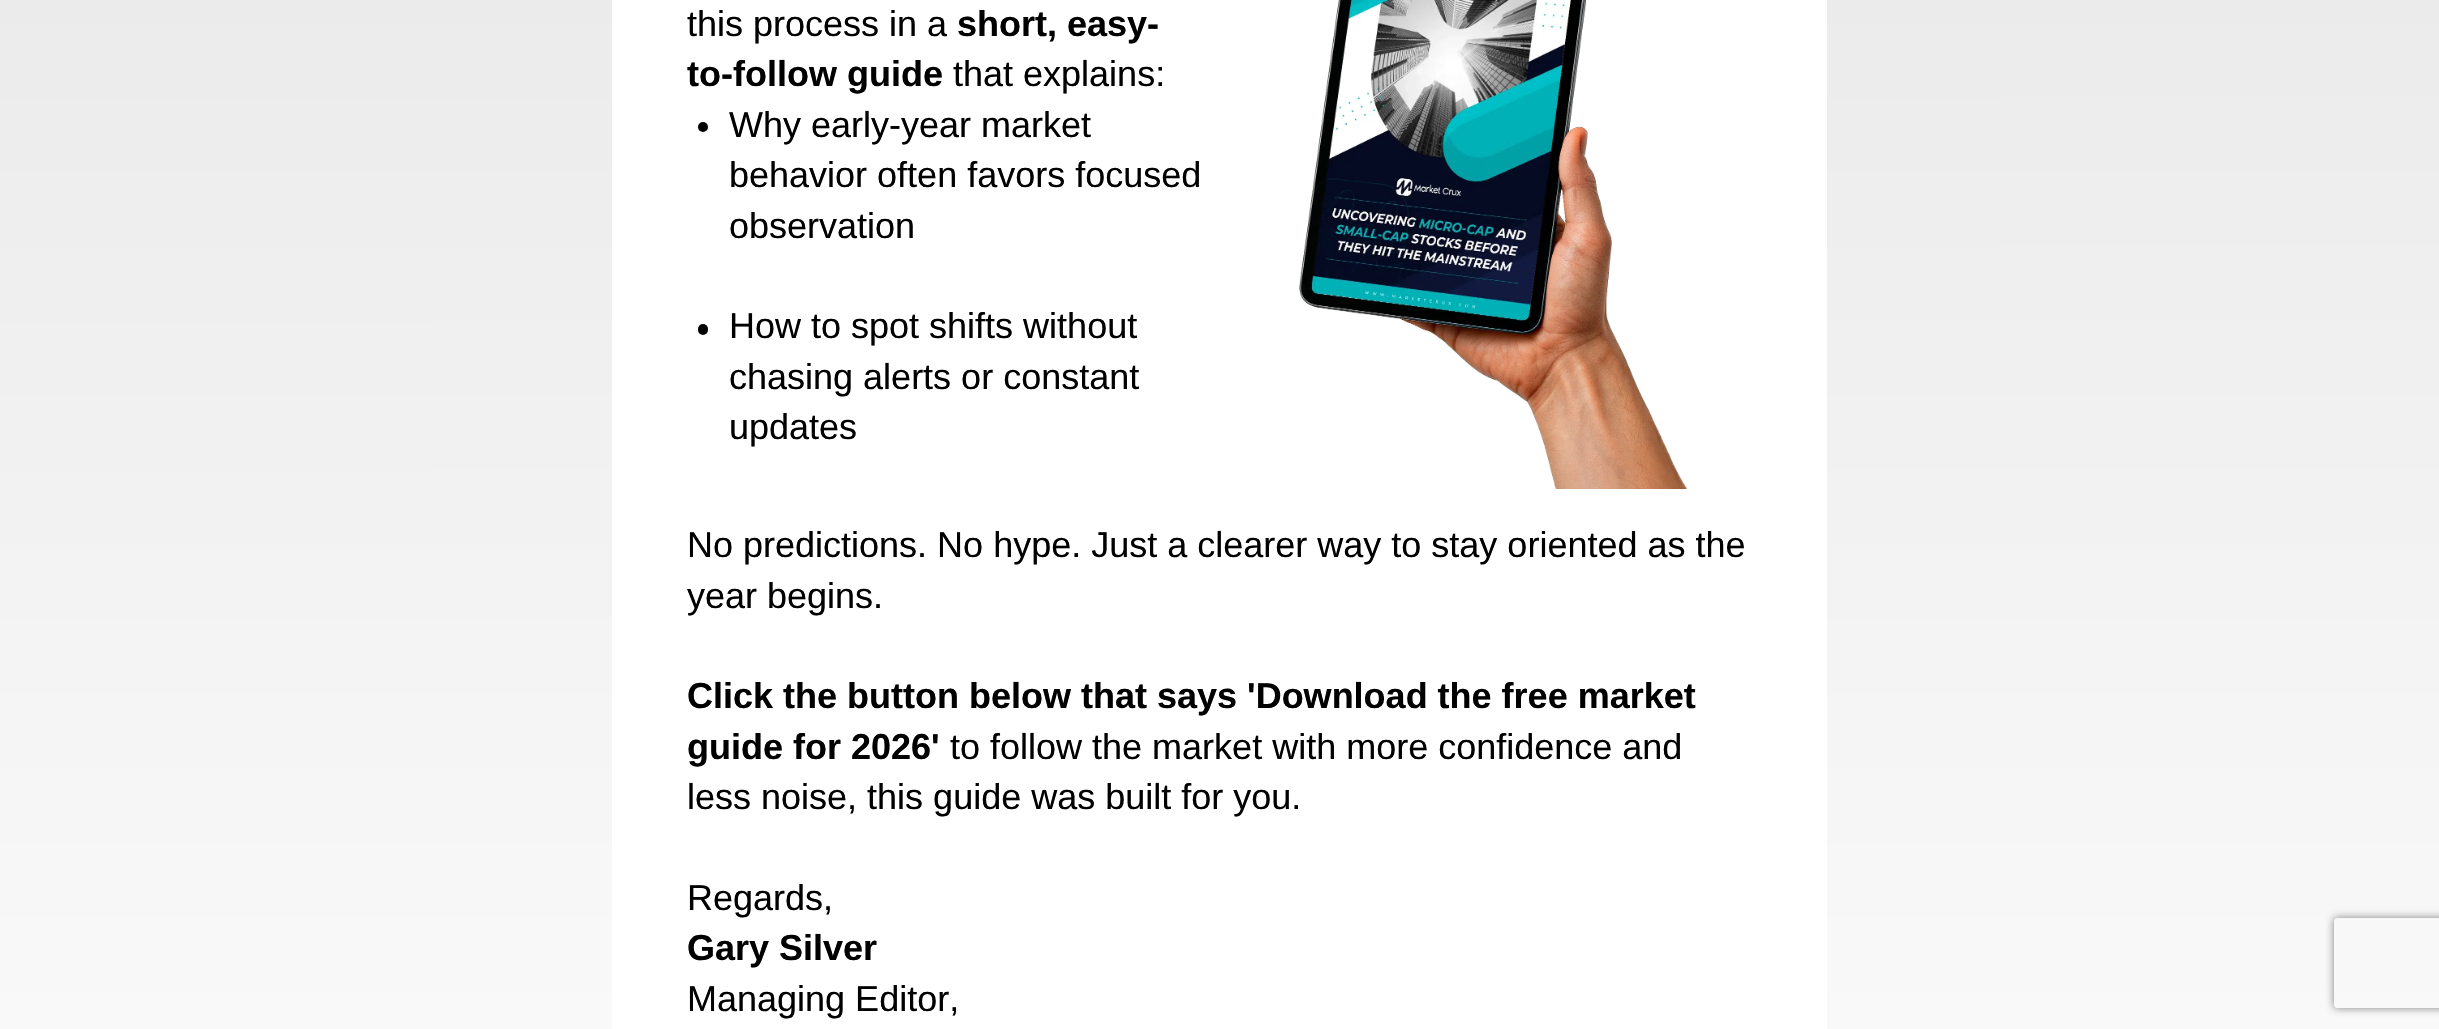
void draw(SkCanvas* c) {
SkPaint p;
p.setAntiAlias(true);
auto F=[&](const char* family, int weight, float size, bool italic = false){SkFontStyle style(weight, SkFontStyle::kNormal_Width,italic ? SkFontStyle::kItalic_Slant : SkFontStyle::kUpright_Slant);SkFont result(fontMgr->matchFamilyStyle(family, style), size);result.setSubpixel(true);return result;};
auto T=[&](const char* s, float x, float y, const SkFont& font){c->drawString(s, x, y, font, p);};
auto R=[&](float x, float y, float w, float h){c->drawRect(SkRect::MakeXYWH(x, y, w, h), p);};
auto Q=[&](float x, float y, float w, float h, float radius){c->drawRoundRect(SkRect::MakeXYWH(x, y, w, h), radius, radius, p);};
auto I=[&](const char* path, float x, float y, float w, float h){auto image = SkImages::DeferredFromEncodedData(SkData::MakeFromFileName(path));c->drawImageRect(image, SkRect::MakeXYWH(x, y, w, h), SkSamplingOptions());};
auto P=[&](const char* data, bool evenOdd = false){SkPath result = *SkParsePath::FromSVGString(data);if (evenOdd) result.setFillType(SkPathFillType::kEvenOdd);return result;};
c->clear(0xffffffff);
{
const SkColor colors[] = {0xffd5d5d5,0xffffffff};
const float stops[] = {0,1};
const SkPoint ends[] = {{1219,-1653}, {1220,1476}};
p.setShader(SkGradientShader::MakeLinear(ends, colors, stops, 2, SkTileMode::kClamp));
p.setAlpha(255);
}
R(0,0,2439,1029);
p.setShader(nullptr);
p.setColor(0xffffffff);
R(612,0,1215,1029);
auto f1 = F("Liberation Sans",400,36);
p.setColor(0xff000000);
T("this process in a",687,36,f1);
auto f2 = F("Liberation Sans",700,36);
T("short, easy-",957,36,f2);
T("to-follow guide",687,86,f2);
T("that explains:",953,86,f1);
c->drawCircle(703,127,5,p);
T("Why early-year market",729,137,f1);
T("behavior often favors focused",729,187,f1);
T("observation",729,238,f1);
Q(698,324,10,11,5);
T("How to spot shifts without",729,338,f1);
T("chasing alerts or constant",729,389,f1);
T("updates",729,439,f1);
I("1.png",1299,0,389,489);
T("No predictions. No hype. Just a clearer way to stay oriented as the",687,557,f1);
T("year begins.",687,608,f1);
T("Click the button below that says 'Download the free market",687,708,f2);
T("guide for 2026'",687,759,f2);
T("to follow the market with more confidence and",950,759,f1);
T("less noise, this guide was built for you.",687,809,f1);
T("Regards,",687,910,f1);
T("Gary Silver",687,960,f2);
T("Managing Editor,",687,1011,f1);
c->save();
c->clipPath(P("M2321 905h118v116h-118zm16 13h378c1.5 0 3 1.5 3 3v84c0 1.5-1.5 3-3 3h-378c-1.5 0-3-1.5-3-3v-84c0-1.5 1.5-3 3-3z",true),true);
p.setColor(0xff808080);
p.setMaskFilter(SkMaskFilter::MakeBlur(kNormal_SkBlurStyle, 4));
c->drawRoundRect(SkRect::MakeXYWH(2334,918,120,90),3,3,p);
p.setMaskFilter(nullptr);
c->restore();
}
